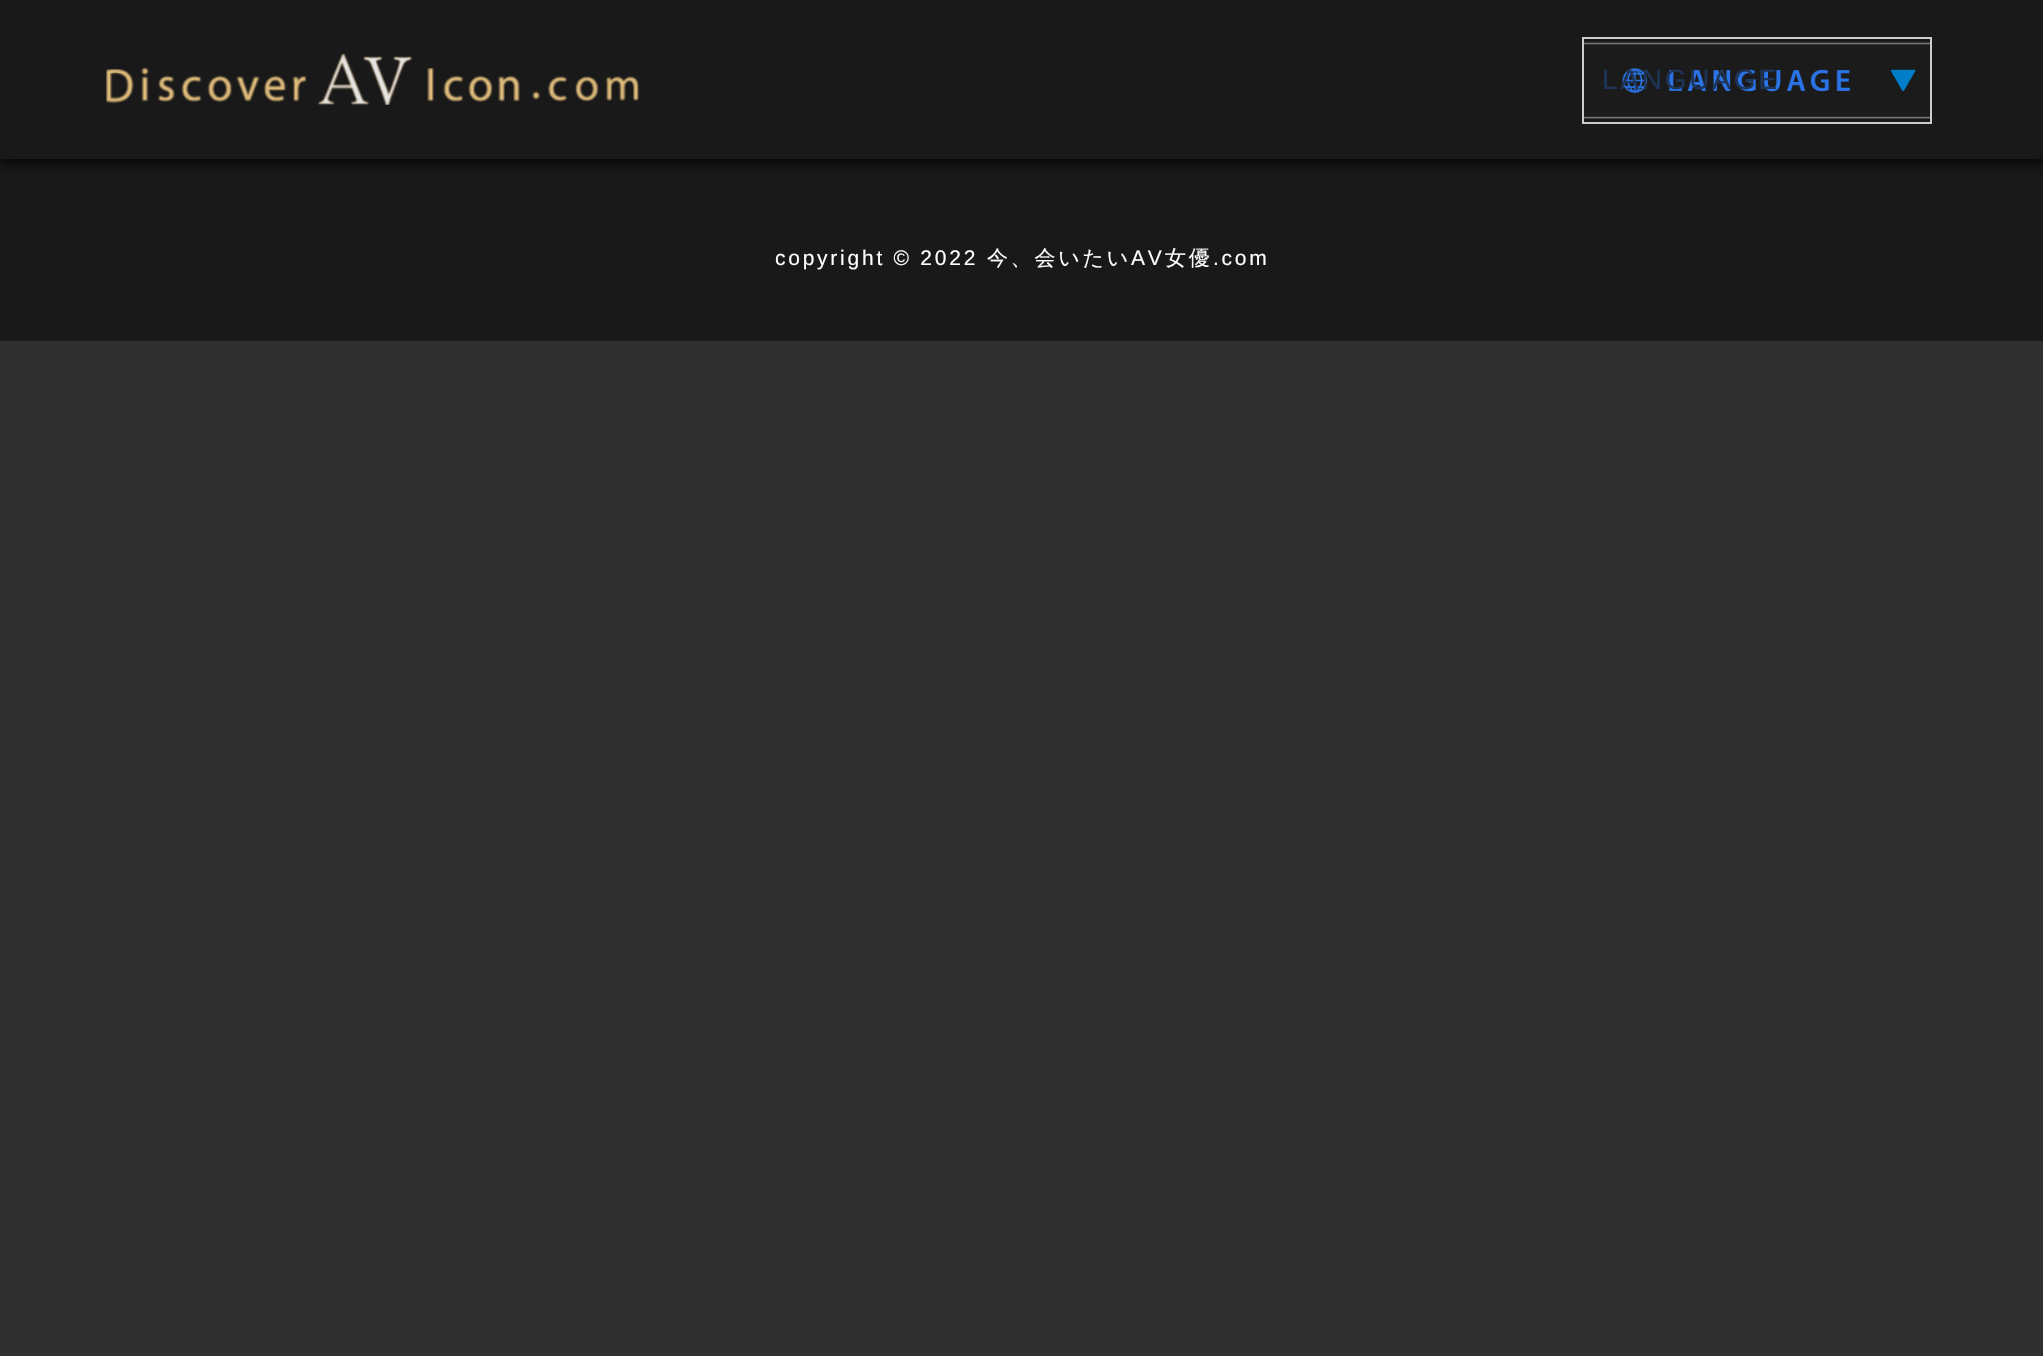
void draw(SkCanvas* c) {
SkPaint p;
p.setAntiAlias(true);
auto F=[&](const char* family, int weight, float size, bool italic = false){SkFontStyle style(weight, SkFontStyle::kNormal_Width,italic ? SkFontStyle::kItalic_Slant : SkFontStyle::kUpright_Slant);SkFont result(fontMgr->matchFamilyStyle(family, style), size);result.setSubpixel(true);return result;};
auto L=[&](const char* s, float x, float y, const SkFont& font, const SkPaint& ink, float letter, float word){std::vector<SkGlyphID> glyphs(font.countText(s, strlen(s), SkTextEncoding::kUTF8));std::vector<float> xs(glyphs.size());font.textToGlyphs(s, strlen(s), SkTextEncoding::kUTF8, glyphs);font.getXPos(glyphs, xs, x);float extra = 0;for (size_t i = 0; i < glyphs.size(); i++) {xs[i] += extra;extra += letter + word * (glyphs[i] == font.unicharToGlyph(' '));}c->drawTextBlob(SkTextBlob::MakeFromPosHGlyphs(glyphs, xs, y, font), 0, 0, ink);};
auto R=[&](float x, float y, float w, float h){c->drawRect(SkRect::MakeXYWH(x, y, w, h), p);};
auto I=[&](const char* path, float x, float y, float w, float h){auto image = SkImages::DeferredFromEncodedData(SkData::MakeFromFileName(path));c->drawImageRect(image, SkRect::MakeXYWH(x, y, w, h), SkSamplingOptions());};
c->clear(0xff313030);
p.setColor(0xff191919);
R(0,159,2043,182);
p.setColor(0xb3000000);
p.setMaskFilter(SkMaskFilter::MakeBlur(kNormal_SkBlurStyle, 5));
c->drawRect(SkRect::MakeXYWH(0,5,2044,160),p);
p.setMaskFilter(nullptr);
p.setColor(0xff191919);
R(0,0,2043,159);
I("1.png",106,54,533,51);
I("2.png",1584,42,346,77);
p.setStroke(true);
p.setStrokeWidth(2);
p.setColor(0xffcccccc);
c->drawRect(SkRect::MakeXYWH(1583,38,348,85),p);
auto f1 = F("Liberation Sans",400,28);
p.setStroke(false);
p.setColor(0xff1f3557);
L("LANGUAGE",1602,89,f1,p,2.75,0);
auto f2 = F("Liberation Sans",400,21);
p.setColor(0xffffffff);
L("copyright © 2022",775,265,f2,p,2.75,0);
auto f3 = F("WenQuanYi Zen Hei",500,21);
L("今、会いたい",987,265,f3,p,2.75,0);
L("AV",1131,265,f2,p,2.75,0);
L("女優",1165,265,f3,p,2.75,0);
L(".com",1213,265,f2,p,2.75,0);
}
